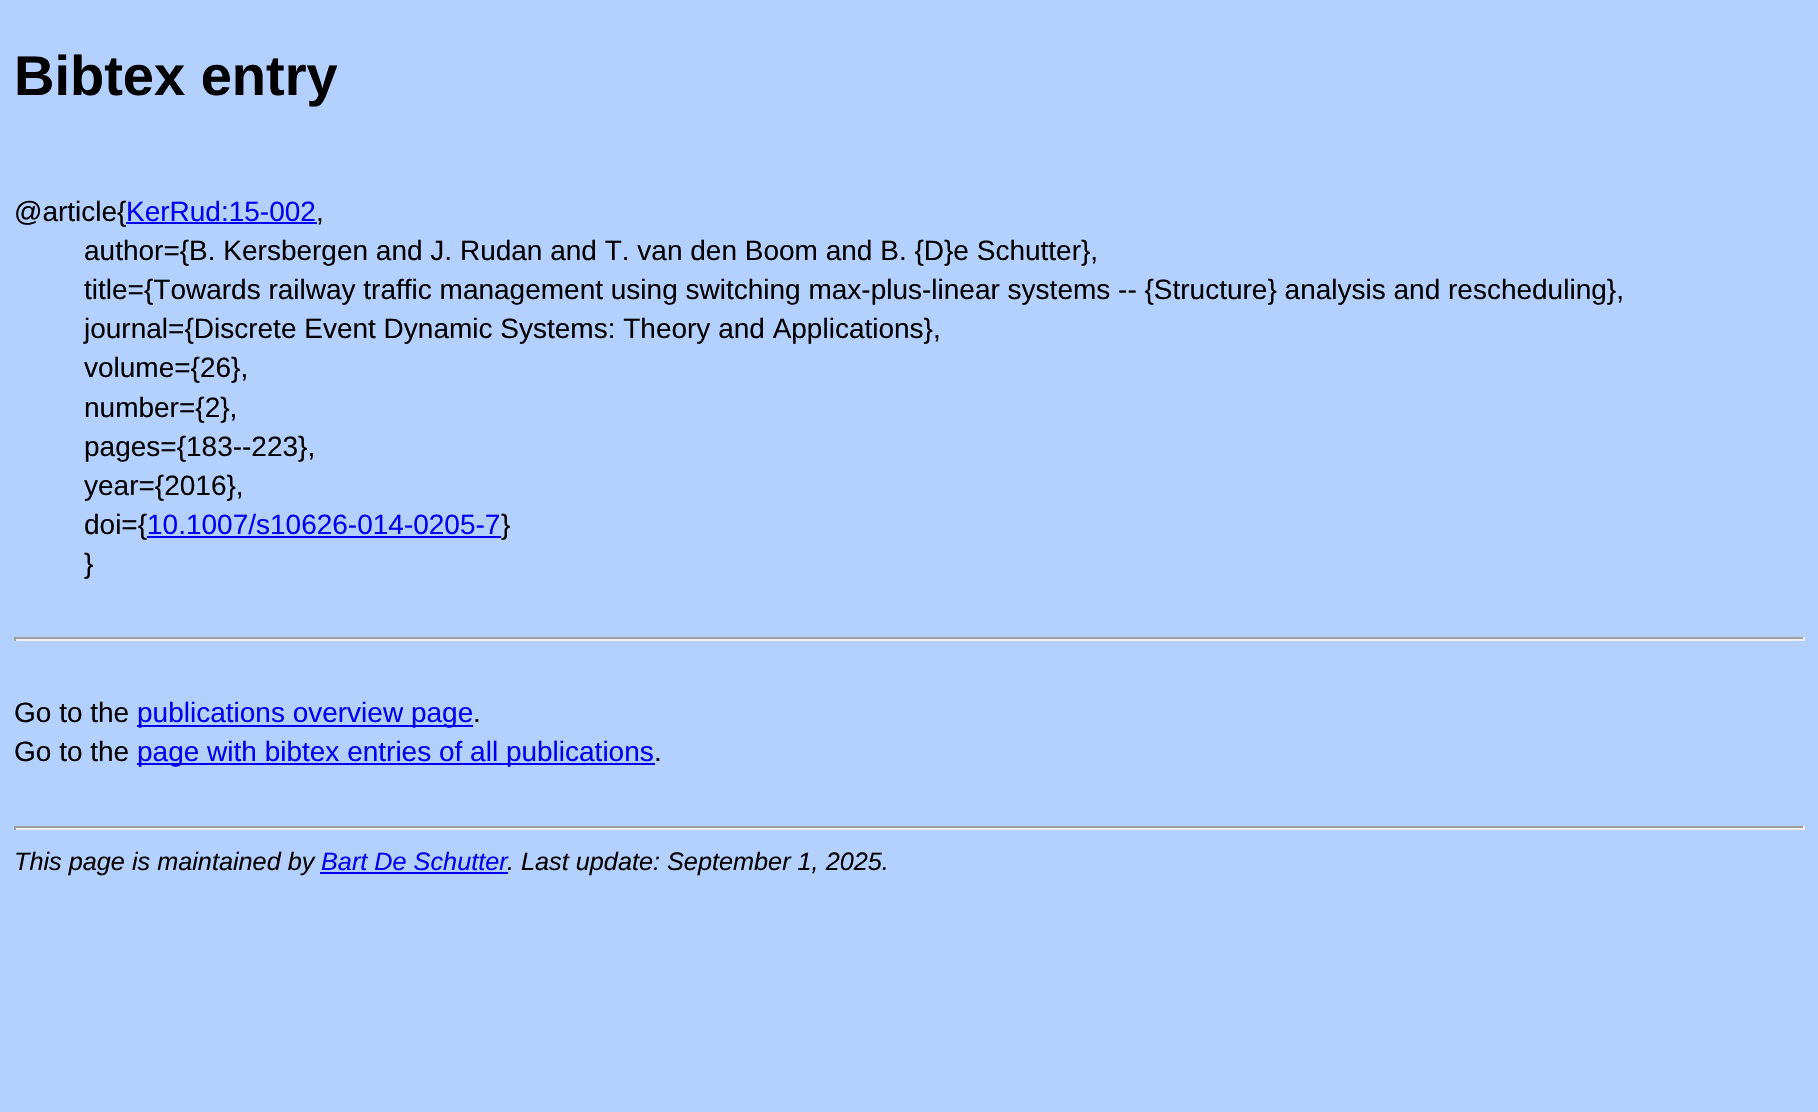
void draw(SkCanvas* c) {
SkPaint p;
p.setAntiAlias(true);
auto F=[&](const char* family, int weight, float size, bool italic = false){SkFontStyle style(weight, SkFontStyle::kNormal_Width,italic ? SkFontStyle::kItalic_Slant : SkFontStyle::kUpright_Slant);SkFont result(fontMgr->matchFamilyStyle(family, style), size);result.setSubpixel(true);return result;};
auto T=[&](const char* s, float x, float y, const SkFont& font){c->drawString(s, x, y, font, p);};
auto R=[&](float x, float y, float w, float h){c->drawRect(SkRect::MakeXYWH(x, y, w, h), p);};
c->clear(0xffb3d0ff);
auto f1 = F("Liberation Sans",700,56);
p.setColor(0xff000000);
T("Bibtex entry",14,95,f1);
auto f2 = F("Liberation Sans",400,28);
T("@article{",14,221,f2);
p.setColor(0xff0000ee);
T("KerRud:15-002",126,221,f2);
R(126,222,191,2);
p.setColor(0xff000000);
T(",",316,221,f2);
T("author={B. Kersbergen and J. Rudan and T. van den Boom and B. {D}e Schutter},",84,260,f2);
T("title={Towards railway traffic management using switching max-plus-linear systems -- {Structure} analysis and rescheduling},",84,299,f2);
T("journal={Discrete Event Dynamic Systems: Theory and Applications},",84,338,f2);
T("volume={26},",84,377,f2);
T("number={2},",84,417,f2);
T("pages={183--223},",84,456,f2);
T("year={2016},",84,495,f2);
T("doi={",84,534,f2);
p.setColor(0xff0000ee);
T("10.1007/s10626-014-0205-7",147,534,f2);
R(147,536,354,2);
p.setColor(0xff000000);
T("}",501,534,f2);
T("}",84,573,f2);
p.setColor(0xff9f9f9f);
R(14,637,1790,2);
p.setColor(0xffeeeeee);
R(1803,637,2,4);
R(14,639,1790,2);
p.setColor(0xff9f9f9f);
R(14,637,2,4);
p.setColor(0xff000000);
T("Go to the",14,722,f2);
p.setColor(0xff0000ee);
R(137,725,336,2);
T("publications overview page",137,722,f2);
p.setColor(0xff000000);
T(".",473,722,f2);
T("Go to the",14,761,f2);
p.setColor(0xff0000ee);
R(137,763,518,2);
T("page with bibtex entries of all publications",137,761,f2);
p.setColor(0xff000000);
T(".",654,761,f2);
p.setColor(0xff9f9f9f);
R(14,826,1790,2);
p.setColor(0xffeeeeee);
R(1803,826,2,4);
R(14,828,1790,2);
p.setColor(0xff9f9f9f);
R(14,826,2,4);
auto f3 = F("Liberation Sans",400,25.25,true);
p.setColor(0xff000000);
T("This page is maintained by",14,870,f3);
p.setColor(0xff0000ee);
T("Bart De Schutter",321,870,f3);
R(320,872,188,2);
p.setColor(0xff000000);
T(". Last update: September 1, 2025.",507,870,f3);
}
